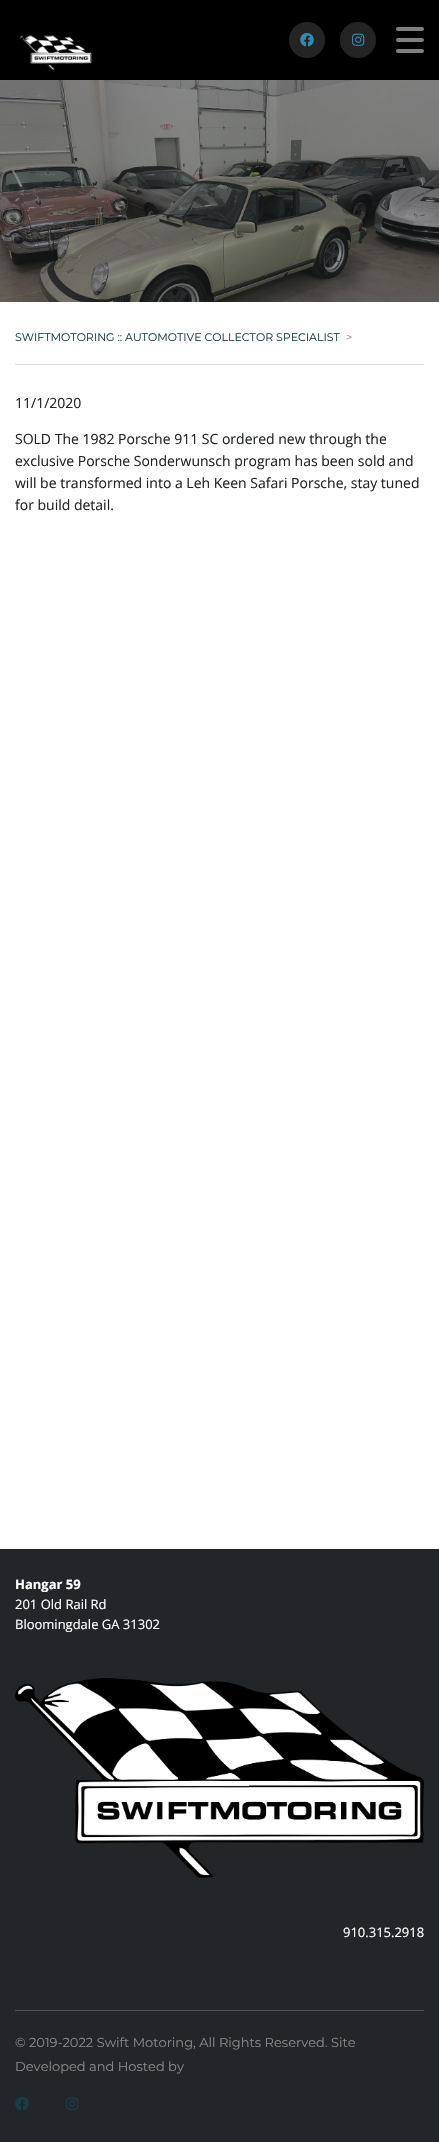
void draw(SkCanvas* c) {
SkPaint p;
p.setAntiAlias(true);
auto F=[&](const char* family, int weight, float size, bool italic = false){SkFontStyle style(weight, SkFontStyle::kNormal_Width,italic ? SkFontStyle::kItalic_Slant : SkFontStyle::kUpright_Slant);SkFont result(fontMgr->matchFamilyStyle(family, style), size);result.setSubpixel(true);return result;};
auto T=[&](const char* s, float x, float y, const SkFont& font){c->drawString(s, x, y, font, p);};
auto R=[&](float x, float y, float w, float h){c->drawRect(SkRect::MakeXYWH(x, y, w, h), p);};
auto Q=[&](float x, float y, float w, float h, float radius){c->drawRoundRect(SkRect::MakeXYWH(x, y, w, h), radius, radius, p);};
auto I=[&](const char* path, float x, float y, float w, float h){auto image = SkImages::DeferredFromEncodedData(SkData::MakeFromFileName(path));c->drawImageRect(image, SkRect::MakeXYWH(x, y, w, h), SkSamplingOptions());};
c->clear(0xffffffff);
p.setColor(0xff000000);
R(0,0,439,80);
I("1.png",19,35,73,35);
p.setColor(0xff242424);
c->drawCircle(307,40,18,p);
I("2.png",300,33,14,14);
c->drawCircle(358,40,18,p);
I("3.png",352,33,13,13);
p.setColor(0xff808080);
Q(396,27,28,4,2);
Q(396,38,28,4,2);
Q(396,49,28,4,2);
I("4.png",0,80,439,222);
p.setColor(0xffdddddd);
R(15,364,409,1);
auto f1 = F("Montserrat",400,11);
p.setColor(0xff153e4d);
T("SWIFTMOTORING :: AUTOMOTIVE COLLECTOR SPECIALIST",15,341,f1);
p.setColor(0xff888888);
T(">",346,341,f1);
auto f2 = F("Open Sans",400,14);
p.setColor(0xff232628);
T("11/1/2020",15,408,f2);
T("SOLD The 1982 Porsche 911 SC ordered new through the",15,444,f2);
T("exclusive Porsche Sonderwunsch program has been sold and",15,466,f2);
T("will be transformed into a Leh Keen Safari Porsche, stay tuned",15,488,f2);
T("for build detail.",15,510,f2);
R(0,1549,439,593);
auto f3 = F("Open Sans",700,13);
p.setColor(0xffffffff);
T("Hangar 59",15,1589,f3);
auto f4 = F("Open Sans",400,13);
T("201 Old Rail Rd",15,1609,f4);
T("Bloomingdale GA 31302",15,1629,f4);
I("5.png",15,1678,409,200);
T("910.315.2918",343,1937,f4);
p.setColor(0xff4f5153);
R(15,2010,409,1);
auto f5 = F("Montserrat",400,13);
p.setColor(0xff888888);
T("© 2019-2022 Swift Motoring, All Rights Reserved. Site",15,2047,f5);
T("Developed and Hosted by",15,2071,f5);
I("6.png",15,2097,14,14);
I("7.png",66,2097,13,13);
}
